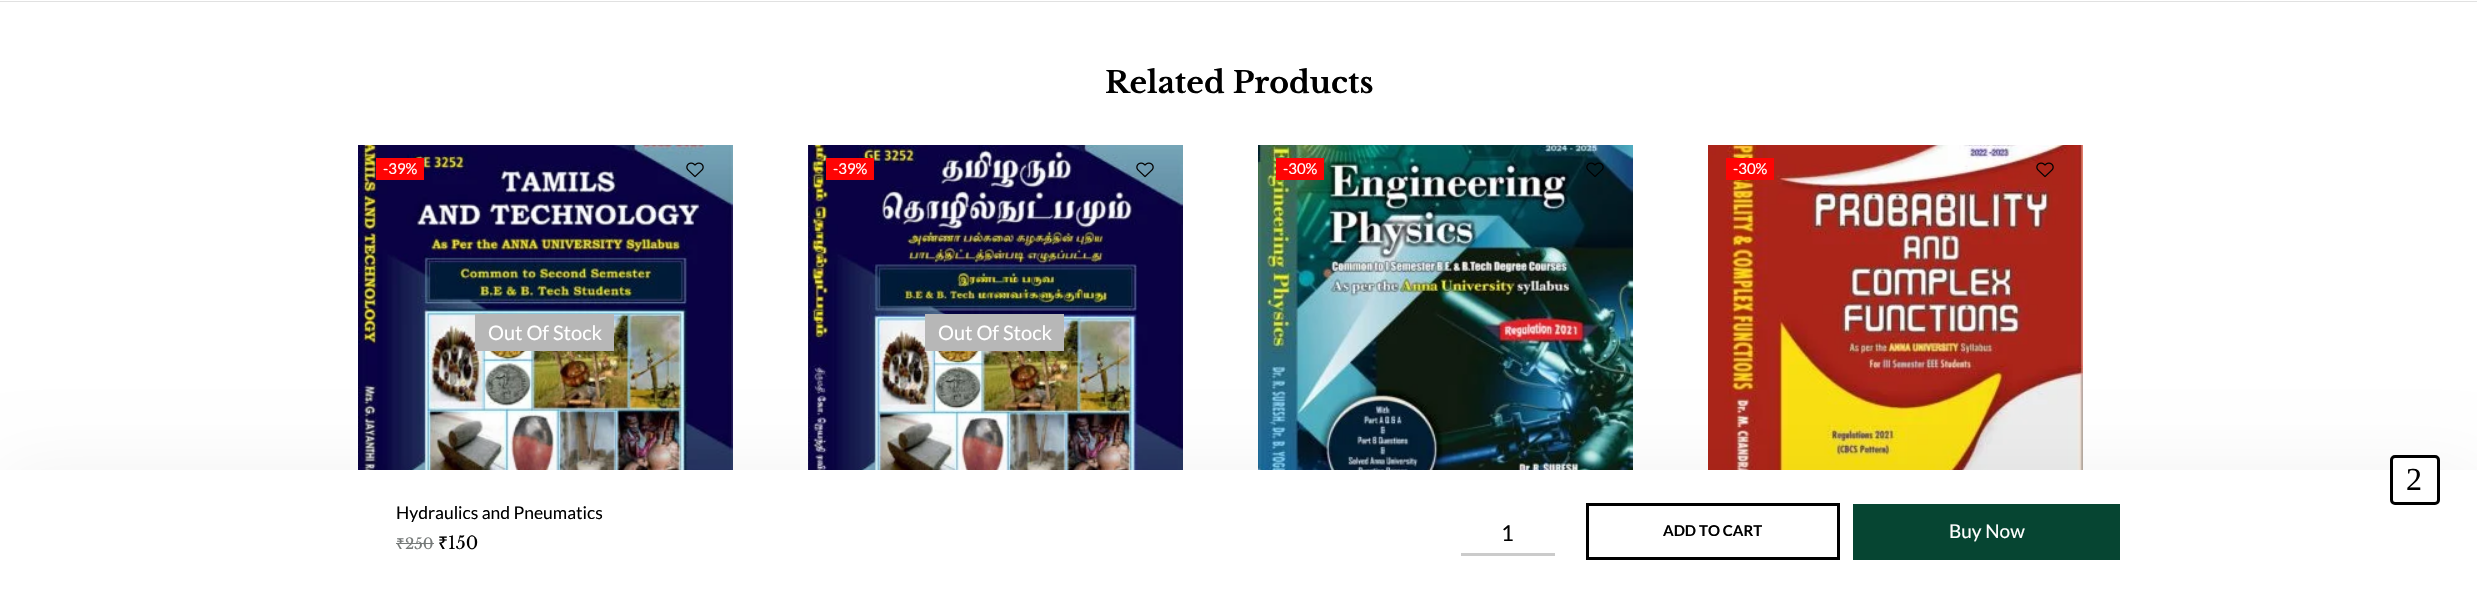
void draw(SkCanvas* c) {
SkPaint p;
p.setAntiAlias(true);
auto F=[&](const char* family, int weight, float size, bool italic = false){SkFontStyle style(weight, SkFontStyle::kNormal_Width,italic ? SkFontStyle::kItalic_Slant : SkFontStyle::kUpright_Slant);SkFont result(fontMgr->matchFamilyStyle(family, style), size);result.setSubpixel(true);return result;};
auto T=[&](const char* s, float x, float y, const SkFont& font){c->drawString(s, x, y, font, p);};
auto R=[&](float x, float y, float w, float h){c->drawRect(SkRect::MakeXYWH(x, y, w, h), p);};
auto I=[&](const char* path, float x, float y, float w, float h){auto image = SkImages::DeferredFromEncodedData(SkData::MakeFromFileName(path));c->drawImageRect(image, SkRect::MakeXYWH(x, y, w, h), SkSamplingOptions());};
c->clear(0xffffffff);
p.setColor(0xffe1e1e1);
R(0,1,2477,1);
auto f1 = F("Libre Baskerville",700,30);
p.setColor(0xff000000);
T("Related Products",1105,93,f1);
I("1.png",358,145,375,325);
p.setColor(0xffff0404);
R(376,158,48,22);
auto f2 = F("Lato",400,15);
p.setColor(0xffffffff);
T("-39%",383,174,f2);
I("2.png",686,162,18,16);
p.setColor(0xffb7b7b7);
R(475,314,139,37);
auto f3 = F("Lato",400,20);
p.setColor(0xffffffff);
T("Out Of Stock",488,340,f3);
I("3.png",808,145,375,325);
p.setColor(0xffff0404);
R(826,158,48,22);
p.setColor(0xffffffff);
T("-39%",833,174,f2);
I("4.png",1136,162,18,16);
p.setColor(0xffb7b7b7);
R(925,314,139,37);
p.setColor(0xffffffff);
T("Out Of Stock",938,340,f3);
I("5.png",1258,145,375,325);
p.setColor(0xffff0404);
R(1276,158,48,22);
p.setColor(0xffffffff);
T("-30%",1283,174,f2);
I("6.png",1586,162,18,15);
I("7.png",1708,145,375,325);
p.setColor(0xffff0404);
R(1726,158,48,22);
p.setColor(0xffffffff);
T("-30%",1733,174,f2);
I("8.png",2036,162,18,16);
p.setColor(0x0d000000);
p.setMaskFilter(SkMaskFilter::MakeBlur(kNormal_SkBlurStyle, 35.5));
c->drawRect(SkRect::MakeXYWH(4,474,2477,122),p);
p.setMaskFilter(nullptr);
p.setColor(0xffffffff);
R(0,470,2477,122);
auto f4 = F("Lato",400,17.5);
p.setColor(0xff000000);
T("Hydraulics and Pneumatics",396,519,f4);
auto f5 = F("Noto Sans",500,15);
p.setColor(0xff767a79);
T("₹",396,549,f5);
R(396,543,9,1);
auto f6 = F("Libre Baskerville",400,15);
T("250",405,549,f6);
R(405,543,29,1);
auto f7 = F("Noto Sans",500,17.5);
p.setColor(0xff000000);
T("₹",438,549,f7);
auto f8 = F("Libre Baskerville",400,17.5);
T("150",448,549,f8);
p.setColor(0xffcbcbcb);
R(1461,553,94,3);
auto f9 = F("Lato",400,22);
p.setColor(0xff000000);
T("1",1501,541,f9);
p.setStroke(true);
p.setStrokeWidth(3);
c->drawRect(SkRect::MakeXYWH(1587.5,504.5,251,54),p);
auto f10 = F("Lato",700,15);
p.setStroke(false);
T("ADD TO CART",1663,536,f10);
p.setColor(0xff064532);
R(1853,504,267,56);
auto f11 = F("Lato",400,19);
p.setColor(0xffffffff);
T("Buy Now",1949,538,f11);
c->drawRoundRect(SkRect::MakeXYWH(2391.5,456.5,47,47),3.5,3.5,p);
p.setStroke(true);
p.setColor(0xff000000);
c->drawRoundRect(SkRect::MakeXYWH(2391.5,456.5,47,47),3.5,3.5,p);
auto f12 = F("Liberation Serif",400,32);
p.setStroke(false);
T("2",2406,490,f12);
}
